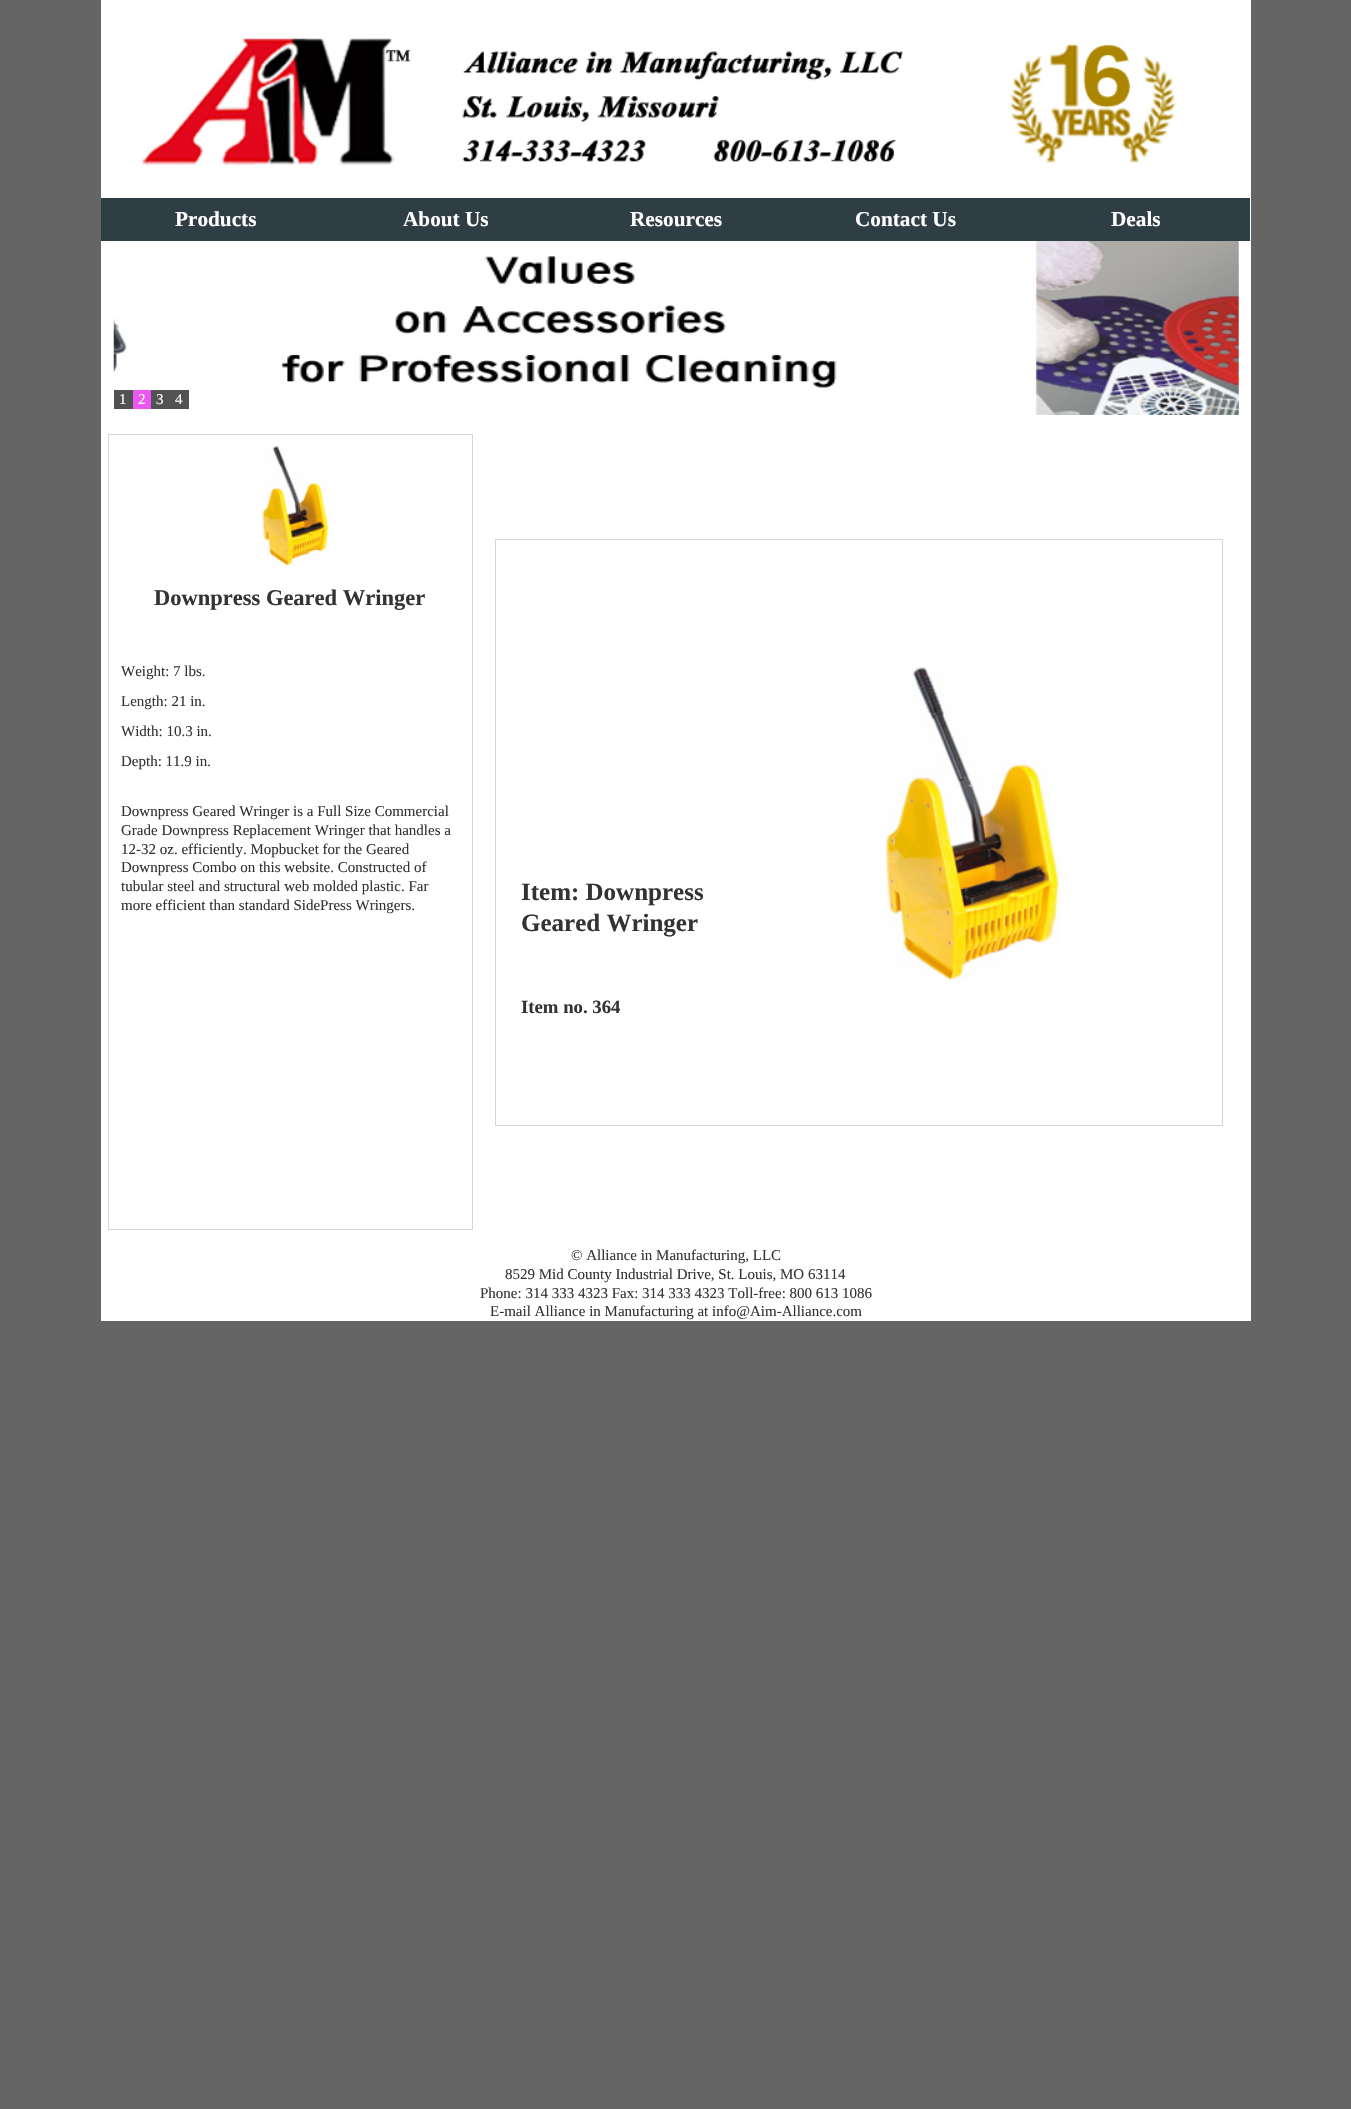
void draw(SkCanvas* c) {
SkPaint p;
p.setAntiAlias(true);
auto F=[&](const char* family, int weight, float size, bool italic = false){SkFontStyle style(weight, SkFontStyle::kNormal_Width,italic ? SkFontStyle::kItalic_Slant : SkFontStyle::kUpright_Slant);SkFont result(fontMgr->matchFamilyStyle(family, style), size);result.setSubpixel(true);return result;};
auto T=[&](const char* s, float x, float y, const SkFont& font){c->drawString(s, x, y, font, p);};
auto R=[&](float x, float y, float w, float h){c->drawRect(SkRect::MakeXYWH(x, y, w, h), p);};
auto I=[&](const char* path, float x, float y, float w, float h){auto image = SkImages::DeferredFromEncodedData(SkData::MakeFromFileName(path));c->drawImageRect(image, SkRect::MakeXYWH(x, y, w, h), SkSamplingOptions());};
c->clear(0xff656565);
p.setColor(0xffffffff);
R(101,0,1150,1321);
I("1.png",142,38,1034,128);
p.setColor(0xff2f3e45);
R(101,198,1149,43);
auto f1 = F("Liberation Serif",700,21.25);
p.setColor(0xffffffff);
T("Products",175,226,f1);
T("About Us",403,226,f1);
T("Resources",630,226,f1);
T("Contact Us",855,226,f1);
T("Deals",1111,226,f1);
I("2.png",113,241,21,134);
I("3.png",133,241,1106,174);
p.setColor(0xff525252);
R(114,390,19,19);
auto f2 = F("Liberation Serif",400,15);
p.setColor(0xffffffff);
T("1",119,404,f2);
p.setColor(0xffec56f3);
R(133,390,18,19);
p.setColor(0xffffffff);
T("2",138,404,f2);
p.setColor(0xff525252);
R(151,390,38,19);
p.setColor(0xffffffff);
T("3",156,404,f2);
T("4",175,404,f2);
p.setStroke(true);
p.setStrokeWidth(1);
p.setColor(0xffd5d5d5);
c->drawRect(SkRect::MakeXYWH(108.5,434.5,364,795),p);
I("4.png",260,446,69,120);
auto f3 = F("Liberation Serif",700,22.5);
p.setStroke(false);
p.setColor(0xff333333);
T("Downpress Geared Wringer",154,605,f3);
T("Weight: 7 lbs.",121,676,f2);
T("Length: 21 in.",121,706,f2);
T("Width: 10.3 in.",121,736,f2);
T("Depth: 11.9 in.",121,766,f2);
T("Downpress Geared Wringer is a Full Size Commercial",121,816,f2);
T("Grade Downpress Replacement Wringer that handles a",121,835,f2);
T("12-32 oz. efficiently. Mopbucket for the Geared",121,854,f2);
T("Downpress Combo on this website. Constructed of",121,872,f2);
T("tubular steel and structural web molded plastic. Far",121,891,f2);
T("more efficient than standard SidePress Wringers.",121,910,f2);
p.setStroke(true);
p.setColor(0xffd5d5d5);
c->drawRect(SkRect::MakeXYWH(495.5,539.5,727,586),p);
auto f4 = F("Liberation Serif",700,25);
p.setStroke(false);
p.setColor(0xff333333);
T("Item: Downpress",521,900,f4);
T("Geared Wringer",521,931,f4);
auto f5 = F("Liberation Serif",700,18.75);
T("Item no. 364",521,1013,f5);
I("5.png",885,667,176,314);
T("© Alliance in Manufacturing, LLC",571,1260,f2);
T("8529 Mid County Industrial Drive, St. Louis, MO 63114",505,1279,f2);
T("Phone: 314 333 4323 Fax: 314 333 4323 Toll-free: 800 613 1086",480,1298,f2);
T("E-mail Alliance in Manufacturing at info@Aim-Alliance.com",490,1316,f2);
}
